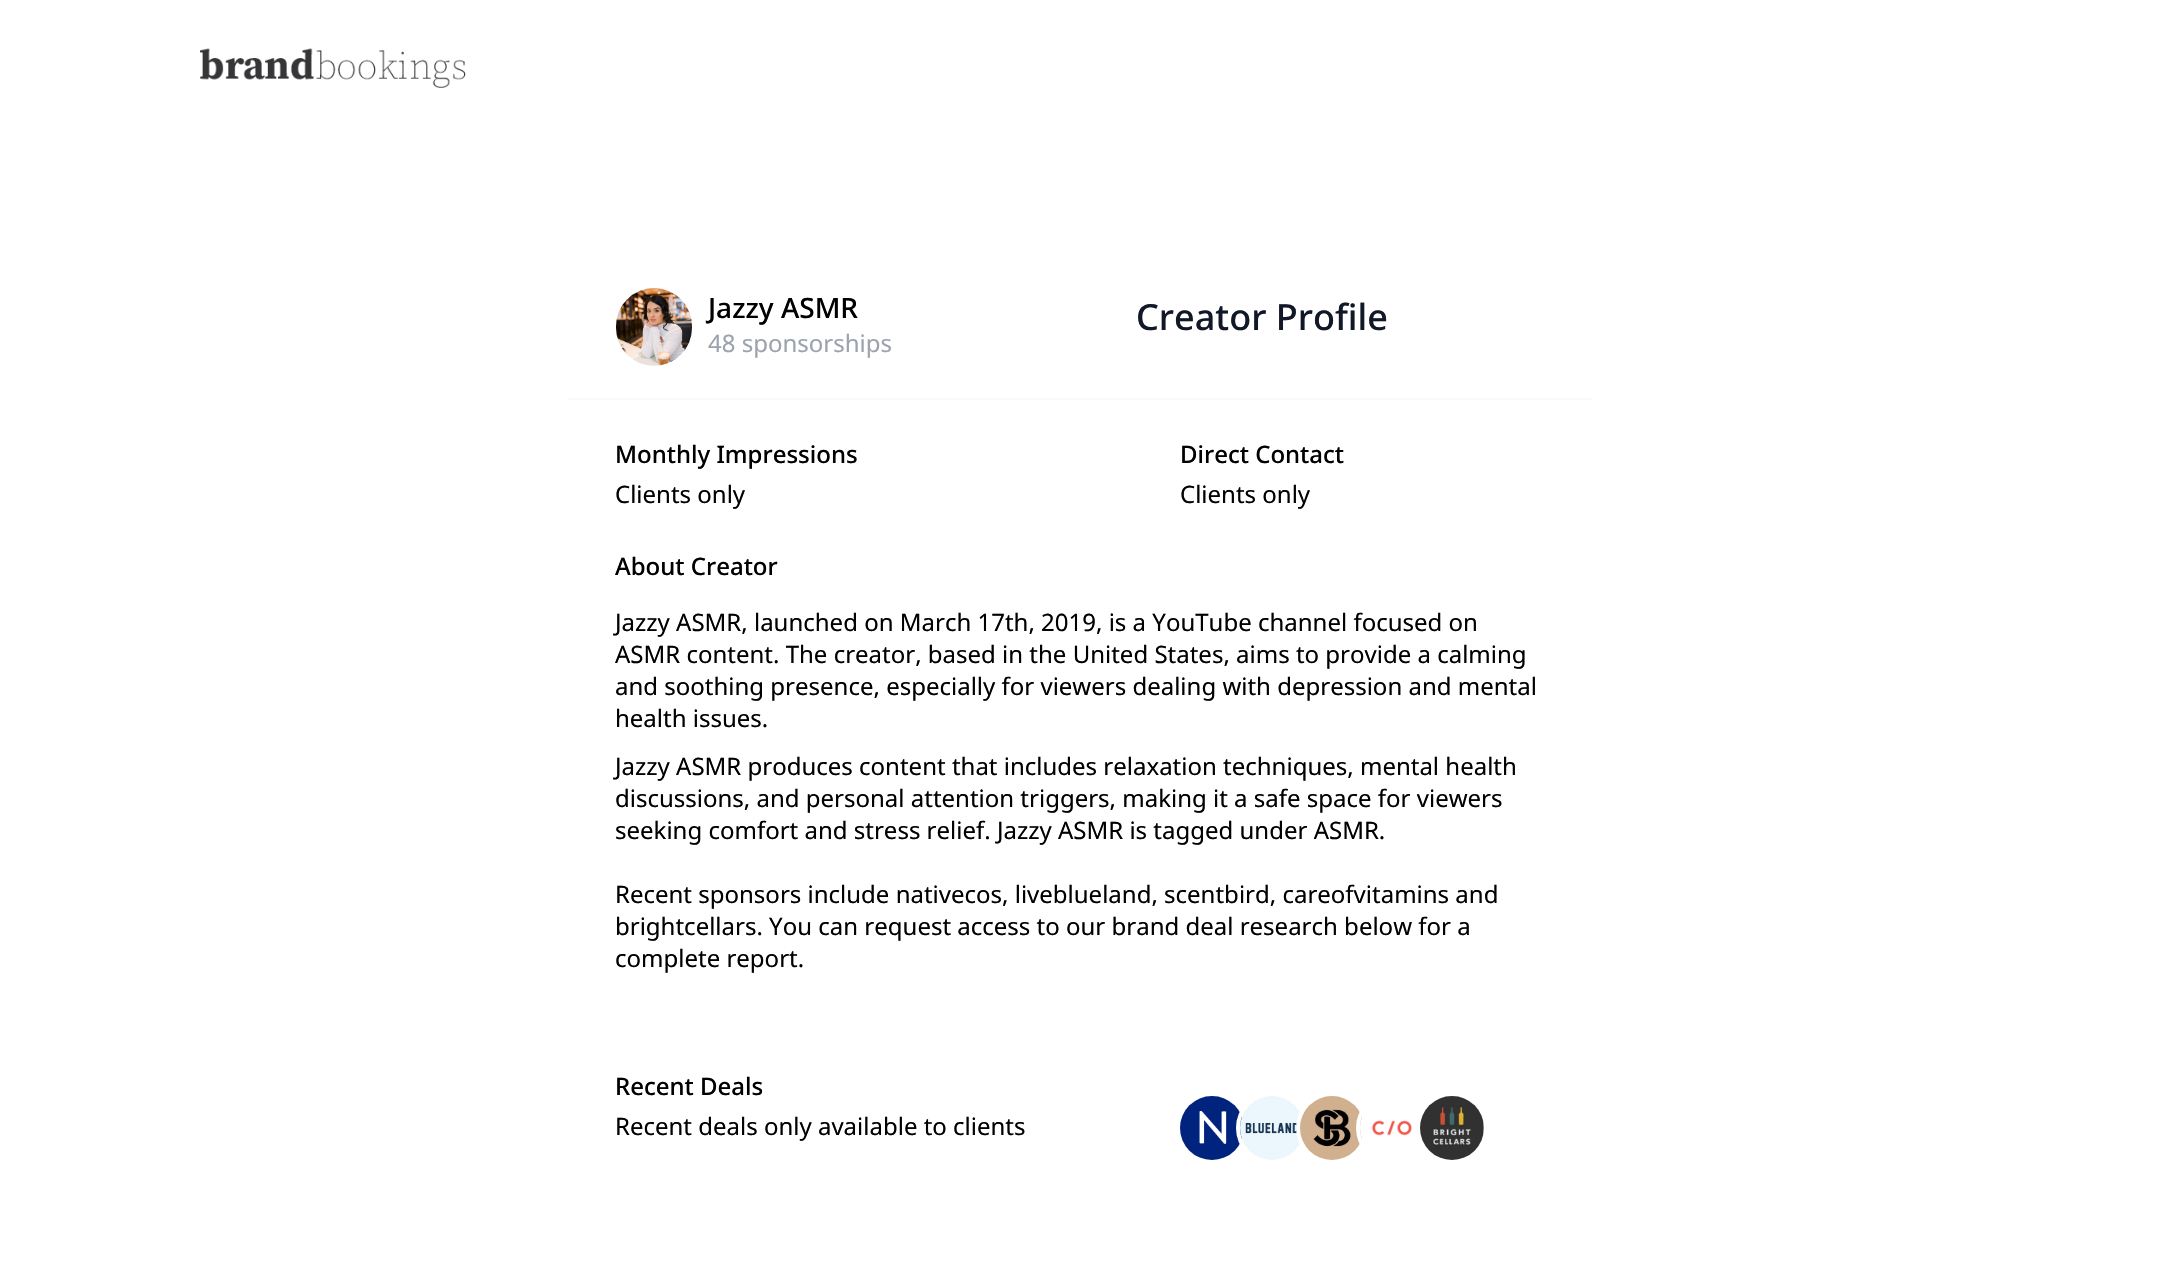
void draw(SkCanvas* c) {
SkPaint p;
p.setAntiAlias(true);
auto F=[&](const char* family, int weight, float size, bool italic = false){SkFontStyle style(weight, SkFontStyle::kNormal_Width,italic ? SkFontStyle::kItalic_Slant : SkFontStyle::kUpright_Slant);SkFont result(fontMgr->matchFamilyStyle(family, style), size);result.setSubpixel(true);return result;};
auto T=[&](const char* s, float x, float y, const SkFont& font){c->drawString(s, x, y, font, p);};
auto R=[&](float x, float y, float w, float h){c->drawRect(SkRect::MakeXYWH(x, y, w, h), p);};
auto I=[&](const char* path, float x, float y, float w, float h){auto image = SkImages::DeferredFromEncodedData(SkData::MakeFromFileName(path));c->drawImageRect(image, SkRect::MakeXYWH(x, y, w, h), SkSamplingOptions());};
c->clear(0xffffffff);
I("1.png",200,48,266,40);
p.setColor(0xfff9fafb);
R(568,398,1024,2);
I("2.png",616,288,76,78);
auto f1 = F("Noto Sans",500,28);
p.setColor(0xff000000);
T("Jazzy ASMR",708,318,f1);
auto f2 = F("Noto Sans",400,24);
p.setColor(0xff9ca3af);
T("48 sponsorships",708,352,f2);
auto f3 = F("Noto Sans",500,36);
p.setColor(0xff111827);
T("Creator Profile",1136,330,f3);
auto f4 = F("Noto Sans",500,24);
p.setColor(0xff000000);
T("Monthly Impressions",615,463,f4);
T("Clients only",615,503,f2);
T("Direct Contact",1180,463,f4);
T("Clients only",1180,503,f2);
T("About Creator",615,575,f4);
T("Jazzy ASMR, launched on March 17th, 2019, is a YouTube channel focused on",615,631,f2);
T("ASMR content. The creator, based in the United States, aims to provide a calming",615,663,f2);
T("and soothing presence, especially for viewers dealing with depression and mental",615,695,f2);
T("health issues.",615,727,f2);
T("Jazzy ASMR produces content that includes relaxation techniques, mental health",615,775,f2);
T("discussions, and personal attention triggers, making it a safe space for viewers",615,807,f2);
T("seeking comfort and stress relief. Jazzy ASMR is tagged under ASMR.",615,839,f2);
T("Recent sponsors include nativecos, liveblueland, scentbird, careofvitamins and",615,903,f2);
T("brightcellars. You can request access to our brand deal research below for a",615,935,f2);
T("complete report.",615,967,f2);
T("Recent Deals",615,1095,f4);
T("Recent deals only available to clients",615,1135,f2);
I("3.png",1180,1096,62,64);
c->save();
c->clipRect(SkRect::MakeXYWH(1180,1096,316,64));
p.setStroke(true);
p.setStrokeWidth(4);
p.setColor(0xffffffff);
c->drawCircle(1272,1128,34,p);
c->restore();
I("4.png",1240,1096,62,64);
c->save();
c->clipRect(SkRect::MakeXYWH(1180,1096,316,64));
c->drawCircle(1332,1128,34,p);
c->restore();
I("5.png",1300,1096,62,64);
c->save();
c->clipRect(SkRect::MakeXYWH(1180,1096,316,64));
c->drawCircle(1392,1128,34,p);
c->restore();
I("6.png",1360,1117,52,22);
I("7.png",1420,1096,64,64);
}
